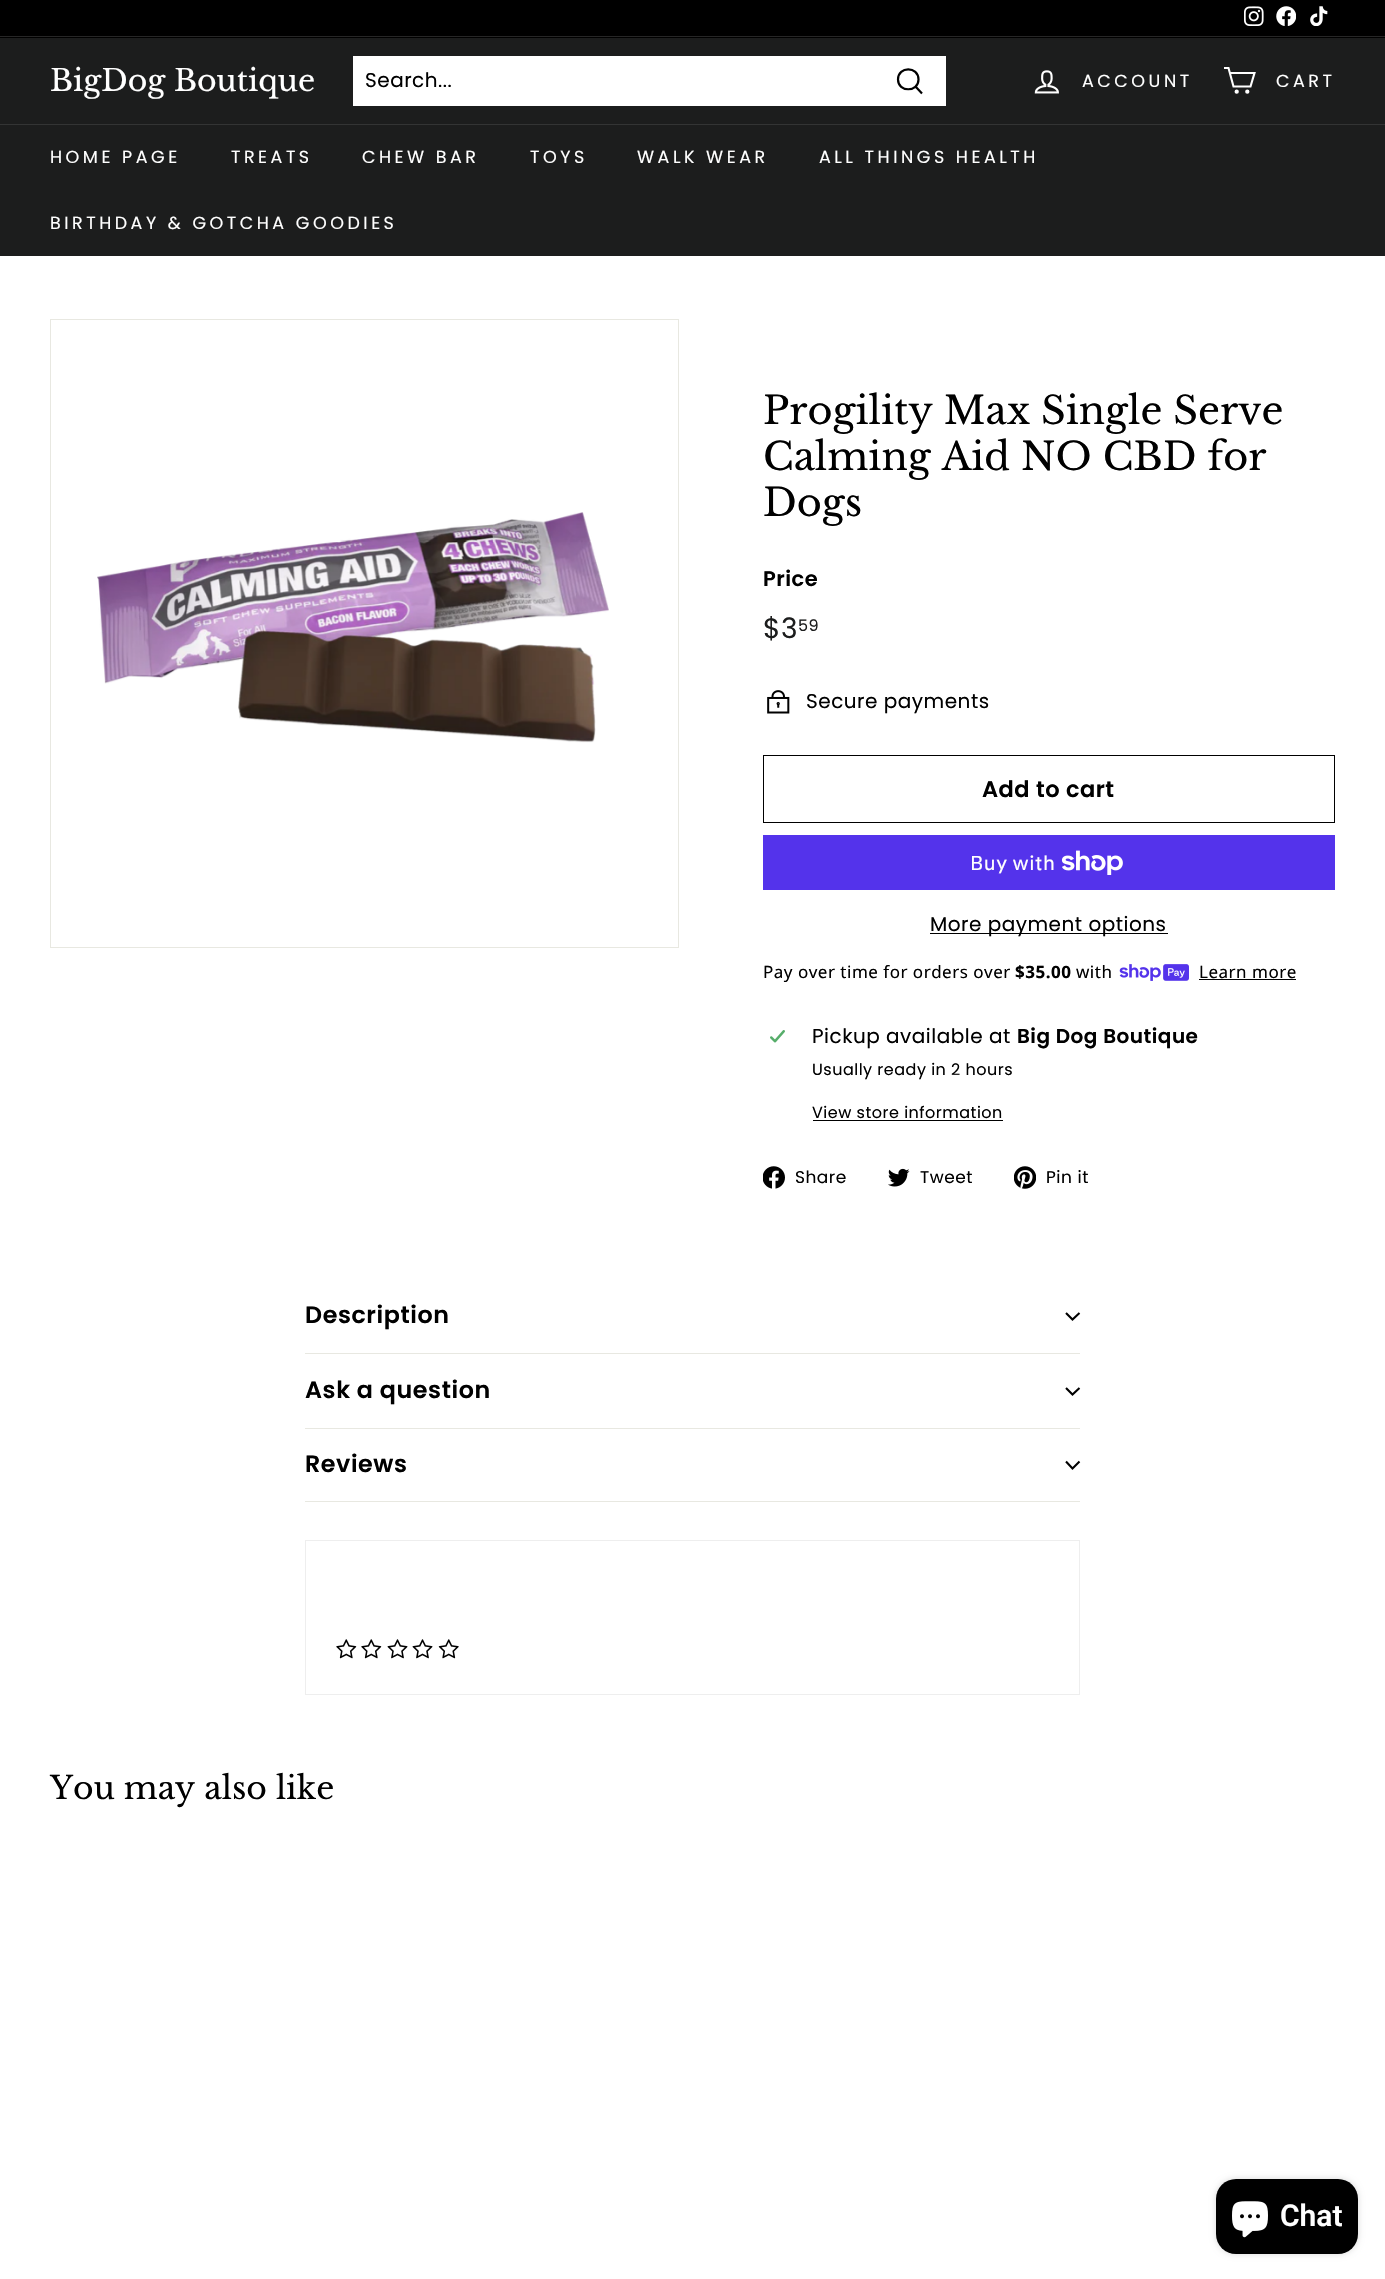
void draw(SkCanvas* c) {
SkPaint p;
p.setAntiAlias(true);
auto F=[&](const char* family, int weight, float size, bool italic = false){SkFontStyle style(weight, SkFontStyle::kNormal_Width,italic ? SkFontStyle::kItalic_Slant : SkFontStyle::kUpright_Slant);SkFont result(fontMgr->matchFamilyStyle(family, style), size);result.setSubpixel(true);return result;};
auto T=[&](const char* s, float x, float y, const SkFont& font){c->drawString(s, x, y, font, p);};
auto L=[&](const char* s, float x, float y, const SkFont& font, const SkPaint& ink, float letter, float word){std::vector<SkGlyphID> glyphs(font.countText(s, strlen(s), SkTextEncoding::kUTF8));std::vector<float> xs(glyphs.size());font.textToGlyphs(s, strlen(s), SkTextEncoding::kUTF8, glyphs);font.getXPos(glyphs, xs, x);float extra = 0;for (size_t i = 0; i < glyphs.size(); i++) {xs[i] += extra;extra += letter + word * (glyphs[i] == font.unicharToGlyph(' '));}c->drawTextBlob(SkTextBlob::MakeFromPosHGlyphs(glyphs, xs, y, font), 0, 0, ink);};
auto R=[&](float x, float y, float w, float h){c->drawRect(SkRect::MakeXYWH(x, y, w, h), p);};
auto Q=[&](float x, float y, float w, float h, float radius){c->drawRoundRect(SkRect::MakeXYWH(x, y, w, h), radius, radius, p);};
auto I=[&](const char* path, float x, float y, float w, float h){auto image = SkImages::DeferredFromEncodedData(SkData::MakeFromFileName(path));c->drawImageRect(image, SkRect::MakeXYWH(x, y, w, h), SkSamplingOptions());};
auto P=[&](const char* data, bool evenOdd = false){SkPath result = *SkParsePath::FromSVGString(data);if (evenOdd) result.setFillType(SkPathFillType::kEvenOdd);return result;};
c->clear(0xffffffff);
p.setColor(0xff000000);
R(0,0,1385,38);
I("1.png",1244,6,20,20);
I("2.png",1276,6,20,20);
I("3.png",1310,6,18,20);
p.setColor(0xff262626);
R(0,36,1385,1);
p.setColor(0xff1c1d1d);
R(0,38,1385,86);
auto f1 = F("Libre Baskerville",400,30);
p.setColor(0xffffffff);
T("BigDog Boutique",50,91,f1);
R(353,56,593,50);
auto f2 = F("Poppins",400,20);
p.setColor(0xff000000);
L("Search...",365,87,f2,p,.5,0);
p.setStroke(true);
p.setStrokeWidth(2.2);
c->drawPath(P("M918.5 79.5c0 13-20.5 13-20.5 0c0-13.5 20.5-13.5 20.5 0zm3.5 14l-6.5-7"),p);
I("4.png",1034,70,25,24);
auto f3 = F("Poppins",400,17.5);
p.setStroke(false);
p.setColor(0xffffffff);
L("ACCOUNT",1082,87,f3,p,3.5,0);
p.setStroke(true);
p.setStrokeWidth(2.1);
c->drawPath(P("M1230 73h24.5l-4 13.5h-17l-5-18.5h-4.5"),p);
c->drawCircle(1236.7,91.7,1.1,p);
c->drawCircle(1247.3,91.7,1.1,p);
p.setStroke(false);
L("CART",1276,87,f3,p,3.5,0);
p.setColor(0xff333434);
R(0,124,1385,1);
p.setColor(0xff1c1d1d);
R(0,125,1385,131);
p.setColor(0xffffffff);
L("HOME PAGE",50,163,f3,p,3.5,0);
L("TREATS",231,163,f3,p,3.5,0);
L("CHEW BAR",362,163,f3,p,3.5,0);
L("TOYS",530,163,f3,p,3.5,0);
L("WALK WEAR",637,163,f3,p,3.5,0);
L("ALL THINGS HEALTH",819,163,f3,p,3.5,0);
L("BIRTHDAY & GOTCHA GOODIES",50,229,f3,p,3.5,0);
p.setStroke(true);
p.setStrokeWidth(1);
p.setColor(0xffe8e8e1);
c->drawRect(SkRect::MakeXYWH(50.5,319.5,628,628),p);
I("5.png",97,512,512,231);
auto f4 = F("Libre Baskerville",400,38.25);
p.setStroke(false);
p.setColor(0xff000000);
T("Progility Max Single Serve",763,424,f4);
T("Calming Aid NO CBD for",763,470,f4);
T("Dogs",763,516,f4);
auto f5 = F("Poppins",600,21);
L("Price",763,586,f5,p,.5,0);
auto f6 = F("Poppins",400,28);
p.setColor(0xff1c1d1d);
L("$3",763,638,f6,p,.5,0);
auto f7 = F("Poppins",400,16);
L("59",798,631,f7,p,.5,0);
I("6.png",767,690,23,24);
p.setColor(0xff000000);
L("Secure payments",806,708,f2,p,.5,0);
p.setStroke(true);
c->drawRect(SkRect::MakeXYWH(763.5,755.5,571,67),p);
auto f8 = F("Poppins",600,22.5);
p.setStroke(false);
L("Add to cart",982,797,f8,p,.5,0);
p.setColor(0xff5433eb);
R(763,835,572,55);
auto f9 = F("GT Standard",400,20);
p.setColor(0xffffffff);
L("Buy with",970,870,f9,p,.5,0);
I("7.png",1061,850,62,25);
p.setColor(0xff000000);
R(930,933,238,1);
L("More payment options",930,931,f2,p,.5,0);
auto f10 = F("Noto Sans",400,17);
L("Pay over time for orders over",763,978,f10,p,.5,0);
auto f11 = F("Noto Sans",700,17);
L("$35.00",1015,978,f11,p,.5,0);
L("with",1076,978,f10,p,.5,0);
I("8.png",1119,964,70,17);
L("Learn more",1199,978,f10,p,.5,0);
R(1199,979,97,1);
I("9.png",770,1030,15,13);
L("Pickup available at",812,1043,f2,p,.5,0);
auto f12 = F("Poppins",600,20);
L("Big Dog Boutique",1017,1043,f12,p,.5,0);
L("Usually ready in 2 hours",812,1075,f7,p,.5,0);
L("View store information",812,1118,f7,p,.5,0);
R(813,1120,190,1);
I("10.png",763,1166,22,23);
auto f13 = F("Poppins",400,17);
L("Share",795,1183,f13,p,.5,0);
I("11.png",888,1168,22,19);
L("Tweet",920,1183,f13,p,.5,0);
I("12.png",1014,1166,22,23);
L("Pin it",1046,1183,f13,p,.5,0);
p.setColor(0xffe8e8e1);
R(305,1353,775,1);
auto f14 = F("Poppins",600,23.75);
p.setColor(0xff000000);
L("Description",305,1323,f14,p,.6,0);
p.setStroke(true);
p.setStrokeWidth(2.1);
c->drawPath(P("M1066 1313l6.5 6.5l7-6.5"),p);
p.setStroke(false);
p.setColor(0xffe8e8e1);
R(305,1428,775,1);
p.setColor(0xff000000);
L("Ask a question",305,1398,f14,p,.6,0);
p.setStroke(true);
c->drawPath(P("M1066 1388l6.5 6.5l7-6.5"),p);
p.setStroke(false);
p.setColor(0xffe8e8e1);
R(305,1501,775,1);
p.setColor(0xff000000);
L("Reviews",305,1472,f14,p,.6,0);
p.setStroke(true);
c->drawPath(P("M1066 1461.5l6.5 7l7-7"),p);
p.setStrokeWidth(1);
p.setColor(0xffeeeeee);
c->drawRect(SkRect::MakeXYWH(305.5,1540.5,774,154),p);
I("13.png",336,1639,21,20);
I("13.png",361,1639,21,20);
I("14.png",387,1639,21,20);
I("14.png",412,1639,21,20);
I("15.png",438,1639,21,20);
auto f15 = F("Libre Baskerville",400,31.5);
p.setStroke(false);
p.setColor(0xff000000);
T("You may also like",50,1799,f15);
p.setColor(0x26000000);
p.setMaskFilter(SkMaskFilter::MakeBlur(kNormal_SkBlurStyle, 3));
c->drawRoundRect(SkRect::MakeXYWH(1216,2179,142,75),20,20,p);
p.setMaskFilter(nullptr);
p.setColor(0xff000000);
Q(1216,2179,142,75,20);
I("16.png",1232,2201,36,37);
auto f16 = F("Roboto",600,30);
p.setColor(0xffffffff);
T("Chat",1280,2226,f16);
}
